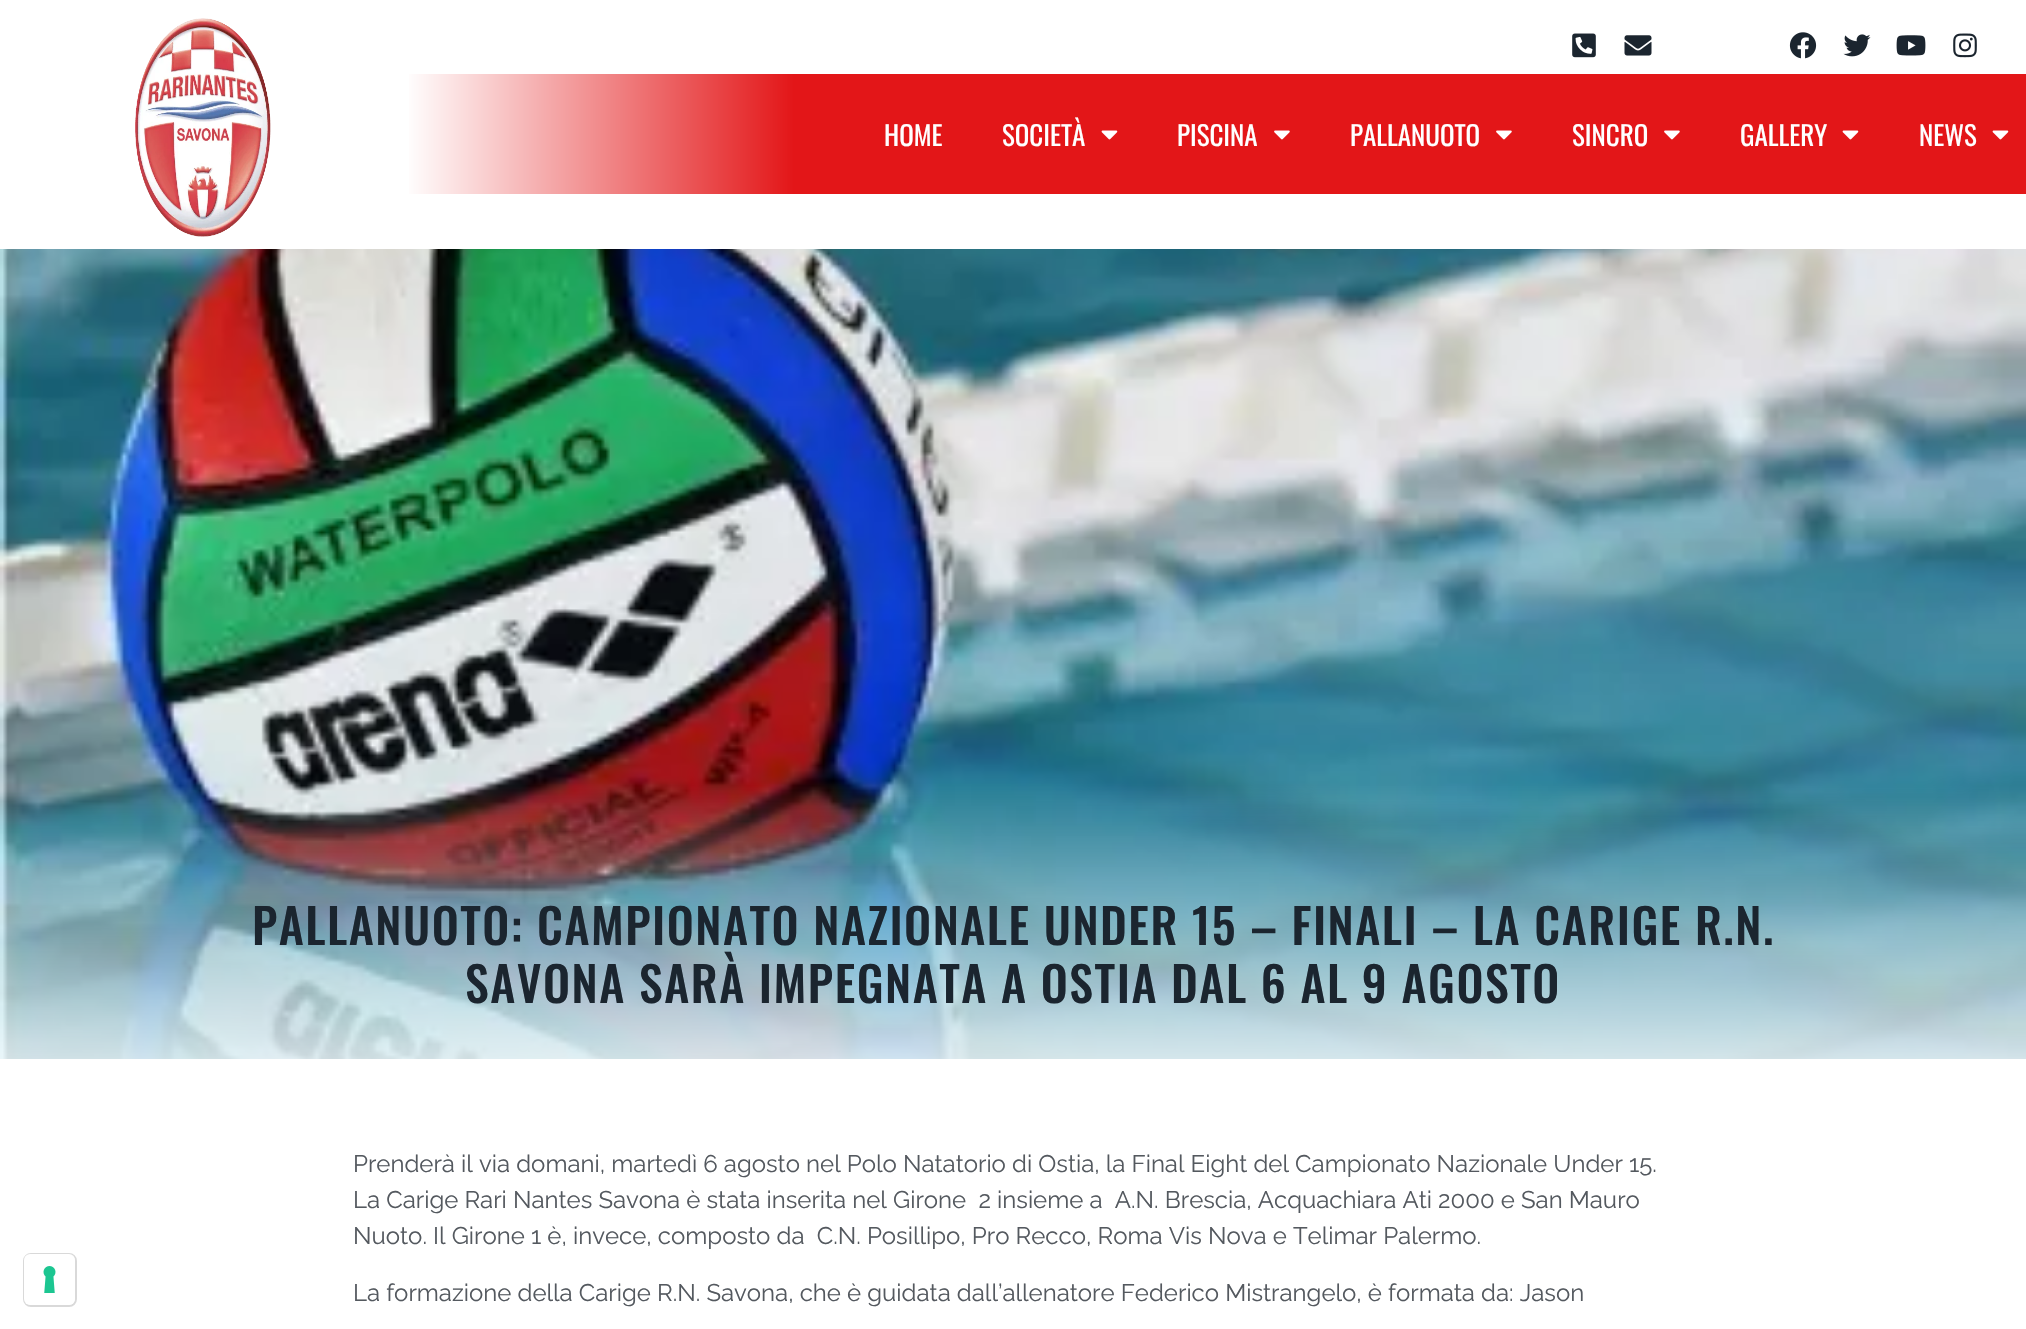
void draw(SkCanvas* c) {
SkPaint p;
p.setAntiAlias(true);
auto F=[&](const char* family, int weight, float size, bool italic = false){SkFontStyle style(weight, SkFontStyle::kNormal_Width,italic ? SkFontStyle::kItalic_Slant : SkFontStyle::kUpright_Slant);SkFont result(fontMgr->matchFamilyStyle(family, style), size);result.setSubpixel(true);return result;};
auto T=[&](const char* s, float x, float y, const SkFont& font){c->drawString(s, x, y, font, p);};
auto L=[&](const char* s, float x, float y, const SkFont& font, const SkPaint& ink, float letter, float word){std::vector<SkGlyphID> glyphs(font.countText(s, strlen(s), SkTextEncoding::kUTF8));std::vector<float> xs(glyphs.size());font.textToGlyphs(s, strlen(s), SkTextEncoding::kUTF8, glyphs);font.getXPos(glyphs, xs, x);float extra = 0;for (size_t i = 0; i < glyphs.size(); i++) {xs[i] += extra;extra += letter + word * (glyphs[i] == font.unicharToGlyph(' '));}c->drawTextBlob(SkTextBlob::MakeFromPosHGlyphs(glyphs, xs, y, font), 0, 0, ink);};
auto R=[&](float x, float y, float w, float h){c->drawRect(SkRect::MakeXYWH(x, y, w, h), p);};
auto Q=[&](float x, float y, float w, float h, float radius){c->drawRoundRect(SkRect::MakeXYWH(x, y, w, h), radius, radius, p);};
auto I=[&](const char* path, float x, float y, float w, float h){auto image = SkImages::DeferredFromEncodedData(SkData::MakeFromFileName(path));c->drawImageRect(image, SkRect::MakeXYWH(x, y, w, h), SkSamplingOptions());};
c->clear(0xffffffff);
I("1.png",135,18,136,219);
I("2.png",1572,33,24,25);
I("3.png",1624,35,28,21);
I("4.png",1789,32,28,27);
I("5.png",1843,34,28,23);
I("6.png",1896,35,30,21);
I("7.png",1953,33,24,25);
{
const SkColor colors[] = {0xffffffff,0xffe31618};
const float stops[] = {0,.24};
const SkPoint ends[] = {{405,134}, {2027,133}};
p.setShader(SkGradientShader::MakeLinear(ends, colors, stops, 2, SkTileMode::kClamp));
p.setAlpha(255);
}
R(409,74,1617,120);
auto f1 = F("Oswald",400,27);
p.setShader(nullptr);
p.setColor(0xffffffff);
T("HOME",884,146,f1);
T("SOCIETÀ",1002,146,f1);
I("8.png",1101,130,17,10);
T("PISCINA",1177,146,f1);
I("9.png",1274,130,16,10);
T("PALLANUOTO",1350,146,f1);
I("9.png",1496,130,16,10);
T("SINCRO",1572,146,f1);
I("9.png",1664,130,16,10);
T("GALLERY",1740,146,f1);
I("8.png",1842,130,17,10);
T("NEWS",1919,146,f1);
I("8.png",1992,130,17,10);
p.setStroke(true);
p.setStrokeWidth(2);
p.setColor(0xffd9d9d9);
c->drawRoundRect(SkRect::MakeXYWH(24,1254,52,52),7,7,p);
p.setStroke(false);
p.setColor(0xffffffff);
Q(24,1254,51,51,6);
I("10.png",43,1266,13,27);
I("11.png",0,249,2026,810);
auto f2 = F("Oswald",500,48);
p.setColor(0xff1b252f);
L("PALLANUOTO: CAMPIONATO NAZIONALE UNDER 15 – FINALI – LA CARIGE R.N.",252,945,f2,p,1.5,0);
L("SAVONA SARÀ IMPEGNATA A OSTIA DAL 6 AL 9 AGOSTO",465,1003,f2,p,1.5,0);
auto f3 = F("Raleway",400,24);
p.setColor(0xff54595f);
T("Prenderà il via domani, martedì 6 agosto nel Polo Natatorio di Ostia, la Final Eight del Campionato Nazionale Under 15.",353,1172,f3);
T("La Carige Rari Nantes Savona è stata inserita nel Girone  2 insieme a  A.N. Brescia, Acquachiara Ati 2000 e San Mauro",353,1208,f3);
T("Nuoto. Il Girone 1 è, invece, composto da  C.N. Posillipo, Pro Recco, Roma Vis Nova e Telimar Palermo.",353,1244,f3);
T("La formazione della Carige R.N. Savona, che è guidata dall’allenatore Federico Mistrangelo, è formata da: Jason",353,1301,f3);
}
